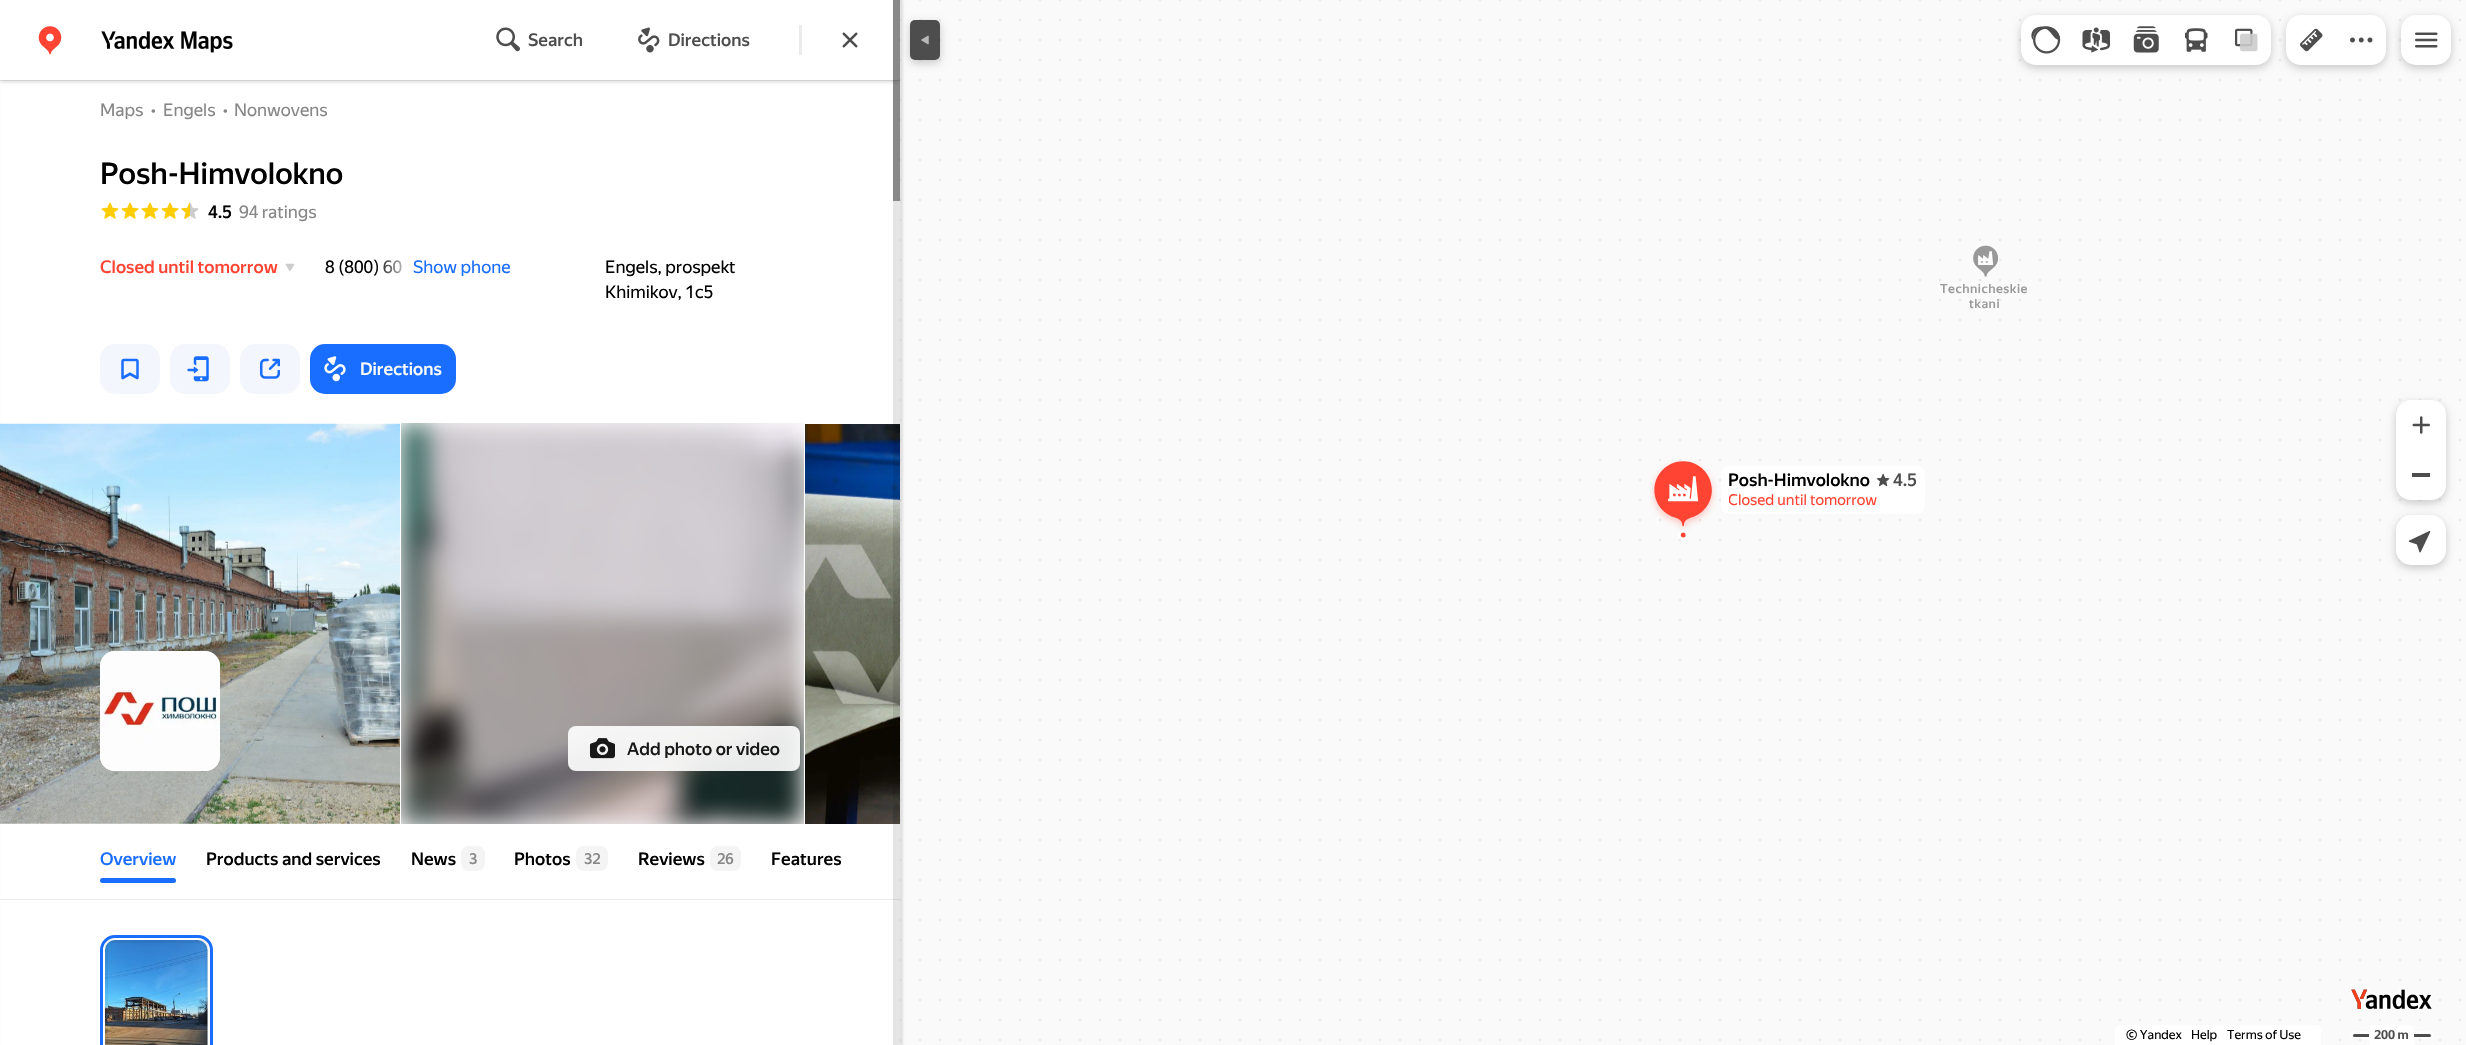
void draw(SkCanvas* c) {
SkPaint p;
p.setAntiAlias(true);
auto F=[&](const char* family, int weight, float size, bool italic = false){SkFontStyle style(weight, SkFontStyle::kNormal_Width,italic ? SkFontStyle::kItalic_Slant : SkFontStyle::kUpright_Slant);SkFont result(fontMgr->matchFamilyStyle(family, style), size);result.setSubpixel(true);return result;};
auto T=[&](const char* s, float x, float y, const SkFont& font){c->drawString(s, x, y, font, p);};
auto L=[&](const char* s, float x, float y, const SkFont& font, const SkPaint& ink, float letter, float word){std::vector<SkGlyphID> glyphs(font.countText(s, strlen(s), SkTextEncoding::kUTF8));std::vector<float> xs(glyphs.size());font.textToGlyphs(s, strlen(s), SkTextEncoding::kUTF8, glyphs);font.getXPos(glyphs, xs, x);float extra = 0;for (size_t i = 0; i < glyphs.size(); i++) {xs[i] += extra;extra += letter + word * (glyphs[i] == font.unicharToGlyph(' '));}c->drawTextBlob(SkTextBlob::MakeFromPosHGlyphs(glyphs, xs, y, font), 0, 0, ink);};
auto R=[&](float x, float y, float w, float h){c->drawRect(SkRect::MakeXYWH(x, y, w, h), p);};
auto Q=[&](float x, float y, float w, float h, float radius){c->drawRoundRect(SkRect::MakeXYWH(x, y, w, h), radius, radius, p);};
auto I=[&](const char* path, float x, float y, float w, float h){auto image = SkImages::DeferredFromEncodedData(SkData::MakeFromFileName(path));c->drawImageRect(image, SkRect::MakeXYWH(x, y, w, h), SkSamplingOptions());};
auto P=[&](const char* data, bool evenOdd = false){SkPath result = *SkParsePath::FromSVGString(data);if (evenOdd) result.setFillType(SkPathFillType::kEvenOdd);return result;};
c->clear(0xffffffff);
I("1.png",900,0,1566,1045);
p.setColor(0x1a000000);
p.setMaskFilter(SkMaskFilter::MakeBlur(kNormal_SkBlurStyle, 1));
c->drawRect(SkRect::MakeXYWH(3,0,900,1045),p);
p.setMaskFilter(nullptr);
p.setColor(0xffffffff);
R(2,81,898,964);
p.setColor(0xffebebeb);
R(0,80,900,1);
c->save();
c->clipRect(SkRect::MakeXYWH(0,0,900,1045));
p.setColor(0x33000000);
p.setMaskFilter(SkMaskFilter::MakeBlur(kNormal_SkBlurStyle, 2.5));
c->drawRect(SkRect::MakeXYWH(0,76,900,5),p);
p.setMaskFilter(nullptr);
c->restore();
p.setMaskFilter(SkMaskFilter::MakeBlur(kNormal_SkBlurStyle, 4));
c->drawRoundRect(SkRect::MakeXYWH(910,23,30,40),5,5,p);
p.setMaskFilter(nullptr);
p.setColor(0xffffffff);
R(0,0,900,80);
I("2.png",38,26,24,29);
I("3.png",101,31,132,22);
I("4.png",496,27,24,25);
auto f1 = F("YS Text",500,17.5);
p.setColor(0xff4d4d4d);
T("Search",528,46,f1);
I("5.png",638,27,22,26);
T("Directions",668,46,f1);
p.setColor(0xffebebeb);
R(799,25,3,30);
I("6.png",842,32,16,16);
auto f2 = F("YS Text",400,17.5);
p.setColor(0xff878787);
T("Maps",100,116,f2);
T("•",151,116,f2);
T("Engels",163,116,f2);
T("•",223,116,f2);
T("Nonwovens",234,116,f2);
auto f3 = F("YS Text",500,30);
p.setColor(0xff000000);
T("Posh-Himvolokno",100,184,f3);
I("7.png",101,202,18,17);
I("7.png",121,202,18,17);
I("7.png",141,202,18,17);
I("7.png",161,202,18,17);
I("8.png",181,202,18,17);
T("4.5",208,218,f1);
p.setColor(0xff878787);
T("94 ratings",239,218,f2);
p.setColor(0xffff4433);
T("Closed until tomorrow",100,273,f1);
I("9.png",285,263,10,8);
p.setColor(0xff000000);
T("8 (800) 60",325,273,f2);
{
const SkColor colors[] = {0x00ffffff,0xffffffff};
const float stops[] = {0,1};
const SkPoint ends[] = {{374,266}, {414,266}};
p.setShader(SkGradientShader::MakeLinear(ends, colors, stops, 2, SkTileMode::kClamp));
p.setAlpha(255);
}
R(375,260,27,14);
p.setShader(nullptr);
p.setColor(0xff196dff);
T("Show phone",413,273,f2);
p.setColor(0xff000000);
T("Engels, prospekt",605,273,f2);
T("Khimikov, 1с5",605,298,f2);
p.setColor(0xfff3f6fc);
Q(100,344,60,50,15);
I("10.png",121,358,18,22);
Q(170,344,60,50,15);
I("11.png",187,356,22,26);
Q(240,344,60,50,15);
I("12.png",260,358,20,21);
p.setColor(0xff196dff);
Q(310,344,146,50,15);
I("13.png",324,356,22,26);
p.setColor(0xffffffff);
T("Directions",360,375,f1);
I("14.png",0,423,400,401);
I("15.png",401,423,403,401);
I("16.png",805,424,95,400);
Q(100,651,120,120,15);
I("17.png",100,651,120,121);
p.setColor(0xe6ffffff);
Q(568,726,232,45,8);
I("18.png",590,738,25,21);
p.setColor(0xff181818);
T("Add photo or video",627,755,f1);
p.setColor(0xff196dff);
T("Overview",100,865,f1);
p.setColor(0xff000000);
T("Products and services",206,865,f1);
T("News",411,865,f1);
p.setColor(0xfff4f4f4);
Q(461,846,24,25,8);
auto f4 = F("YS Text",500,15);
p.setColor(0xff878787);
T("3",469,864,f4);
p.setColor(0xff000000);
T("Photos",514,865,f1);
p.setColor(0xfff4f4f4);
Q(576,846,32,25,8);
p.setColor(0xff878787);
T("32",584,864,f4);
p.setColor(0xff000000);
T("Reviews",638,865,f1);
p.setColor(0xfff4f4f4);
Q(710,846,31,25,8);
p.setColor(0xff878787);
T("26",717,864,f4);
p.setColor(0xff000000);
T("Features",771,865,f1);
p.setColor(0xff196dff);
Q(100,878,76,5,2.5);
p.setColor(0xffebebeb);
R(0,899,900,1);
p.setStroke(true);
p.setStrokeWidth(3);
p.setColor(0xff196dff);
c->drawRoundRect(SkRect::MakeXYWH(101.5,936.5,110,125),13.5,13.5,p);
p.setStroke(false);
p.setColor(0xfff6f6f6);
c->drawPath(P("M115 940h83c5.5 0 10 4.5 10 10v95h-103v-95c0-5.5 4.5-10 10-10z"),p);
I("19.png",105,940,103,105);
p.setStroke(true);
p.setColor(0x0d000000);
c->drawRect(SkRect::MakeXYWH(106.5,941.5,100,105),p);
p.setStroke(false);
p.setColor(0x1a000000);
R(893,0,7,1045);
p.setColor(0x66000000);
R(893,0,7,201);
p.setColor(0xff4d4d4d);
Q(910,20,30,40,5);
I("20.png",921,35,8,10);
p.setColor(0x33000000);
p.setMaskFilter(SkMaskFilter::MakeBlur(kNormal_SkBlurStyle, 4));
c->drawRoundRect(SkRect::MakeXYWH(2021,18,250,50),15,15,p);
p.setMaskFilter(nullptr);
p.setColor(0xffffffff);
c->drawPath(P("M2036 15h35v50h-35c-8.5 0-15-6.5-15-15v-20c0-8.5 6.5-15 15-15z"),p);
I("21.png",2031,26,30,28);
R(2071,15,150,50);
I("22.png",2082,27,28,26);
c->drawPath(P("M2221 15h35c8.5 0 15 6.5 15 15v20c0 8.5-6.5 15-15 15h-35z"),p);
I("23.png",2235,28,23,24);
I("24.png",2133,26,26,27);
I("25.png",2185,28,23,24);
p.setColor(0x33000000);
p.setMaskFilter(SkMaskFilter::MakeBlur(kNormal_SkBlurStyle, 4));
c->drawRoundRect(SkRect::MakeXYWH(2286,18,100,50),15,15,p);
p.setMaskFilter(nullptr);
p.setColor(0xffffffff);
c->drawPath(P("M2301 15h35v50h-35c-8.5 0-15-6.5-15-15v-20c0-8.5 6.5-15 15-15z"),p);
I("26.png",2300,28,23,24);
c->drawPath(P("M2336 15h35c8.5 0 15 6.5 15 15v20c0 8.5-6.5 15-15 15h-35z"),p);
I("27.png",2350,37,23,6);
p.setColor(0x33000000);
p.setMaskFilter(SkMaskFilter::MakeBlur(kNormal_SkBlurStyle, 4));
c->drawRoundRect(SkRect::MakeXYWH(2401,18,50,50),15,15,p);
p.setMaskFilter(nullptr);
p.setColor(0xffffffff);
Q(2401,15,50,50,15);
I("28.png",2415,32,23,16);
p.setColor(0x33000000);
p.setMaskFilter(SkMaskFilter::MakeBlur(kNormal_SkBlurStyle, 4));
c->drawRoundRect(SkRect::MakeXYWH(2396,403,50,100),15,15,p);
p.setMaskFilter(nullptr);
p.setColor(0xffffffff);
c->drawPath(P("M2411 400h20c8.5 0 15 6.5 15 15v35h-50v-35c0-8.5 6.5-15 15-15z"),p);
I("29.png",2412,416,18,18);
c->drawPath(P("M2396 450h50v35c0 8.5-6.5 15-15 15h-20c-8.5 0-15-6.5-15-15z"),p);
p.setColor(0xff4d4d4d);
R(2412,473,18,4);
p.setColor(0x33000000);
p.setMaskFilter(SkMaskFilter::MakeBlur(kNormal_SkBlurStyle, 4));
c->drawRoundRect(SkRect::MakeXYWH(2396,518,50,50),15,15,p);
p.setMaskFilter(nullptr);
p.setColor(0xffffffff);
Q(2396,515,50,50,15);
I("30.png",2408,531,23,22);
I("31.png",2351,989,81,20);
c->drawPath(P("M2120 1025h196c3 0 5 2 5 5v15h-206v-15c0-3 2-5 5-5z"),p);
auto f5 = F("YS Text",400,12.5);
p.setColor(0xff000000);
T("© Yandex",2126,1039,f5);
T("Help",2191,1039,f5);
T("Terms of Use",2227,1039,f5);
p.setColor(0xfffdfdfd);
Q(2350,1031,84,8,4);
p.setColor(0xff4d4d4d);
Q(2353,1034,78,3,1.5);
p.setColor(0xffffffff);
c->drawPath(P("M2374 1025h35c3 0 5 2 5 5v15h-45v-15c0-3 2-5 5-5z"),p);
auto f6 = F("YS Text",700,12.5);
p.setColor(0xff4d4d4d);
T("200 m",2374,1039,f6);
I("32.png",1973,245,27,32);
I("33.png",1978,251,15,14);
auto f7 = F("YS Text",500,12.5);
p.setColor(0xff999999);
L("Technicheskie",1940,293,f7,p,.5,0);
L("tkani",1969,308,f7,p,.5,0);
I("34.png",1650,460,67,80);
I("35.png",1668,476,31,26);
p.setColor(0xe6ffffff);
Q(1721,466,204,48,8);
p.setColor(0xff000000);
T("Posh-Himvolokno",1728,486,f1);
I("36.png",1876,473,14,14);
p.setColor(0xff4d4d4d);
T("4.5",1893,486,f1);
c->save();
c->clipRect(SkRect::MakeXYWH(1729,491,189,18));
auto f8 = F("YS Text",400,15);
p.setColor(0xffff4433);
T("Closed until tomorrow",1728,505,f8);
c->restore();
}
